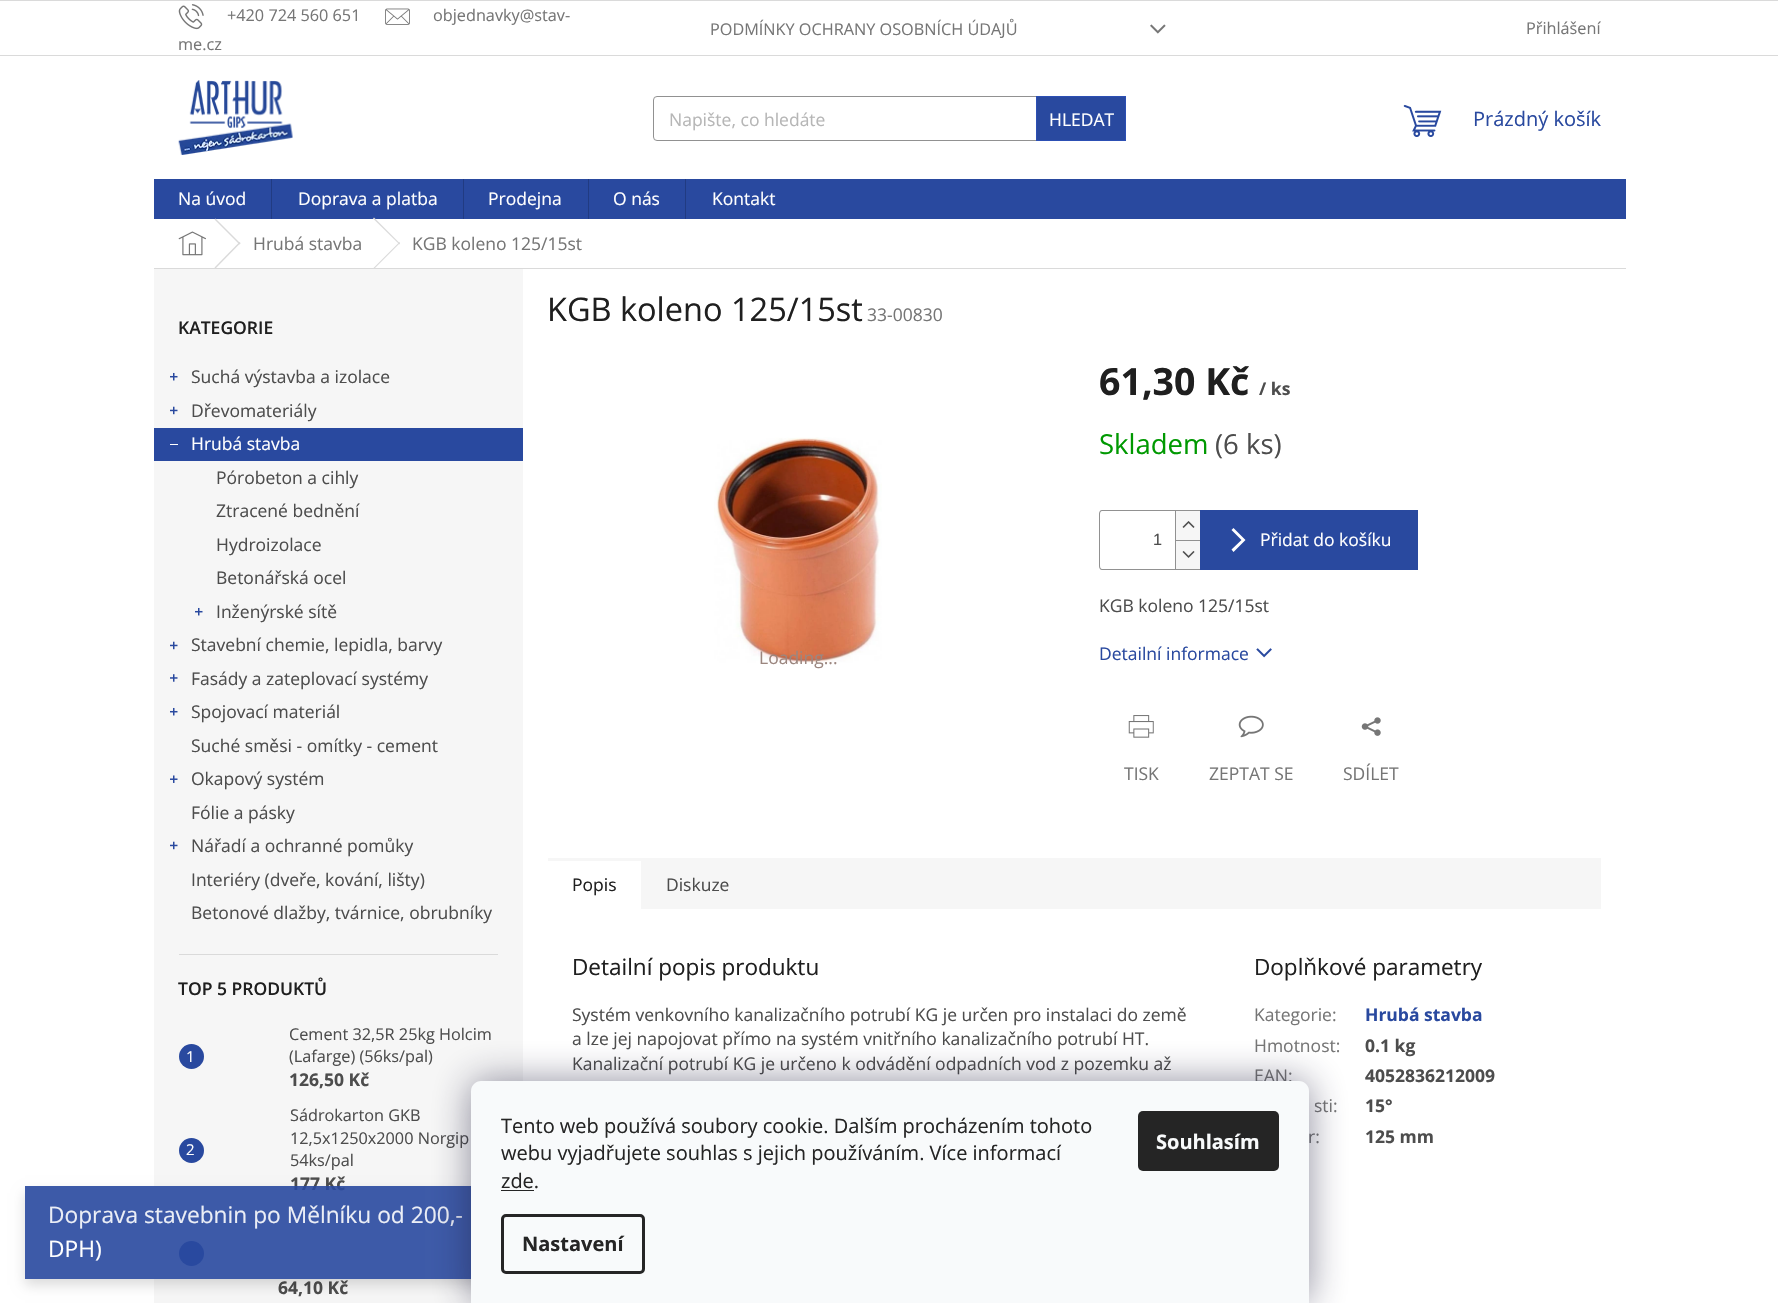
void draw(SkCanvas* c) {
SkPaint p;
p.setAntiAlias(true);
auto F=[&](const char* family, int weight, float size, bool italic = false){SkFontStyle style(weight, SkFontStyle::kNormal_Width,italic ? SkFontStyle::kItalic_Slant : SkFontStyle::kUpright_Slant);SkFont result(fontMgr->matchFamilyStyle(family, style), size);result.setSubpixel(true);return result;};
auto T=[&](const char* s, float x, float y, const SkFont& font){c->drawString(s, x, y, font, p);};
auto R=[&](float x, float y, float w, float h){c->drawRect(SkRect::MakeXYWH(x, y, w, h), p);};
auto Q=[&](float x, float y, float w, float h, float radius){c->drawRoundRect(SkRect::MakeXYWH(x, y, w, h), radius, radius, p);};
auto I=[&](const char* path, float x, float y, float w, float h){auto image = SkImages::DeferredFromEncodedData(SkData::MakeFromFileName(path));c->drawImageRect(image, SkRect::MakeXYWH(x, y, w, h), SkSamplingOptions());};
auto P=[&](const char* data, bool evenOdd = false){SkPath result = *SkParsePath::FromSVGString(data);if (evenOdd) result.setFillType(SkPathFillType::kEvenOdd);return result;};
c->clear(0xffffffff);
p.setColor(0xffdadada);
R(0,0,1778,1);
R(0,55,1778,1);
I("1.png",385,8,25,17);
auto f1 = F("Open Sans",400,16.25);
p.setColor(0xff767676);
T("objednavky@stav-",433,21,f1);
T("me.cz",178,50,f1);
I("2.png",178,4,26,26);
T("+420 724 560 651",227,21,f1);
T("PODMÍNKY OCHRANY OSOBNÍCH ÚDAJŮ",710,35,f1);
I("3.png",1150,24,16,10);
T("Přihlášení",1526,34,f1);
I("4.png",178,80,115,75);
p.setStroke(true);
p.setStrokeWidth(1);
p.setColor(0xff919191);
c->drawRoundRect(SkRect::MakeXYWH(653.5,96.5,472,44),3.5,3.5,p);
auto f2 = F("Open Sans",400,17.5);
p.setStroke(false);
p.setColor(0xffb6b6b6);
T("Napište, co hledáte",669,126,f2);
p.setColor(0xff29499f);
c->drawRect(SkRect::MakeXYWH(1036.5,96.5,89,44),p);
p.setStroke(true);
p.setColor(0xff2c4fb4);
c->drawRect(SkRect::MakeXYWH(1036.5,96.5,89,44),p);
p.setStroke(false);
p.setColor(0xffffffff);
T("HLEDAT",1049,126,f2);
I("5.png",1403,104,39,33);
auto f3 = F("Open Sans",400,20);
p.setColor(0xff29499f);
T("Prázdný košík",1473,126,f3);
R(154,179,1472,40);
p.setColor(0xffffffff);
T("Na úvod",178,205,f2);
p.setColor(0xff213b82);
R(271,179,1,40);
p.setColor(0xffffffff);
T("Doprava a platba",298,205,f2);
p.setColor(0xff213b82);
R(463,179,1,40);
p.setColor(0xffffffff);
T("Prodejna",488,205,f2);
p.setColor(0xff213b82);
R(588,179,1,40);
p.setColor(0xffffffff);
T("O nás",613,205,f2);
p.setColor(0xff213b82);
R(685,179,1,40);
p.setColor(0xffffffff);
T("Kontakt",712,205,f2);
p.setColor(0xffdadada);
R(154,268,1472,1);
I("6.png",178,231,28,25);
c->drawPath(P("M214.5 219.5l1-1l25 25l-1 1z"),p);
c->drawPath(P("M239.5 242l1 1l-25 25.5l-1-1z"),p);
p.setColor(0xff767676);
T("Hrubá stavba",253,250,f2);
p.setColor(0xffdadada);
c->drawPath(P("M373 218.5l1-1l26 26l-.5 1z"),p);
c->drawPath(P("M399.5 242l.5 1l-26 26l-1-.5z"),p);
p.setColor(0xff767676);
T("KGB koleno 125/15st",412,250,f2);
p.setColor(0xfff6f6f6);
R(154,269,369,1034);
p.setColor(0xffdadada);
R(179,954,319,1);
auto f4 = F("Open Sans",600,17.5);
p.setColor(0xff1f1f1f);
T("KATEGORIE",178,334,f4);
I("7.png",170,372,8,9);
p.setColor(0xff4d4d4d);
T("Suchá výstavba a izolace",191,383,f2);
I("8.png",170,406,8,9);
T("Dřevomateriály",191,417,f2);
p.setColor(0xff29499f);
R(154,428,369,33);
p.setColor(0xffffffff);
R(170,444,8,1);
T("Hrubá stavba",191,450,f2);
p.setColor(0xff4d4d4d);
T("Pórobeton a cihly",216,484,f2);
T("Ztracené bednění",216,517,f2);
T("Hydroizolace",216,551,f2);
T("Betonářská ocel",216,584,f2);
I("7.png",195,607,8,9);
T("Inženýrské sítě",216,618,f2);
I("8.png",170,641,8,9);
T("Stavební chemie, lepidla, barvy",191,651,f2);
I("9.png",170,674,8,8);
T("Fasády a zateplovací systémy",191,685,f2);
I("7.png",170,707,8,9);
T("Spojovací materiál",191,718,f2);
T("Suché směsi - omítky - cement",191,752,f2);
I("10.png",170,775,8,8);
T("Okapový systém",191,785,f2);
T("Fólie a pásky",191,819,f2);
I("8.png",170,841,8,9);
T("Nářadí a ochranné pomůky",191,852,f2);
T("Interiéry (dveře, kování, lišty)",191,886,f2);
T("Betonové dlažby, tvárnice, obrubníky",191,919,f2);
p.setColor(0xff1f1f1f);
T("TOP 5 PRODUKTŮ",178,995,f4);
p.setColor(0xff29499f);
c->drawCircle(191.5,1056.5,12.5,p);
auto f5 = F("Open Sans",400,15);
p.setColor(0xffffffff);
T("1",186,1062,f5);
p.setColor(0xff4d4d4d);
T("Cement 32,5R 25kg Holcim",289,1040,f1);
T("(Lafarge) (56ks/pal)",289,1062,f1);
auto f6 = F("Open Sans",700,17.5);
T("126,50 Kč",289,1086,f6);
p.setColor(0xff29499f);
c->drawCircle(191.5,1150.5,12.5,p);
p.setColor(0xffffffff);
T("2",186,1155,f5);
p.setColor(0xff4d4d4d);
T("Sádrokarton GKB",290,1121,f1);
T("12,5x1250x2000 Norgip",290,1144,f1);
T("54ks/pal",290,1166,f1);
T("177 Kč",290,1190,f6);
p.setColor(0xff29499f);
c->drawCircle(191.5,1253.5,12.5,p);
p.setColor(0xff4d4d4d);
T("64,10 Kč",278,1294,f6);
auto f7 = F("Open Sans",400,32.5);
p.setColor(0xff1f1f1f);
T("KGB koleno 125/15st",547,321,f7);
p.setColor(0xff767676);
T("33-00830",867,321,f2);
I("11.png",714,437,168,226);
p.setColor(0xff9b867f);
T("Loading...",759,664,f2);
auto f8 = F("Open Sans",700,37.5);
p.setColor(0xff1f1f1f);
T("61,30 Kč",1099,395,f8);
p.setColor(0xff4d4d4d);
T("/ ks",1259,395,f6);
auto f9 = F("Open Sans",400,27.5);
p.setColor(0xff009901);
T("Skladem",1099,454,f9);
p.setColor(0xff4d4d4d);
T("(6 ks)",1215,454,f9);
p.setColor(0xff919191);
c->drawPath(P("M1102 510h98v60h-98c-2 0-3-2-3-4v-52c0-2 1-4 3-4zm0 1h98v58h-98c-1 0-2-1-2-3v-52c0-2 1-3 2-3z",true),p);
auto f10 = F("Liberation Sans",400,16.25);
p.setColor(0xff4d4d4d);
T("1",1153,545,f10);
p.setColor(0xfff6f6f6);
R(1176,511,24,29);
p.setColor(0xff919191);
R(1175,511,1,29);
I("12.png",1182,521,13,7);
p.setColor(0xfff6f6f6);
R(1176,541,24,28);
p.setColor(0xff919191);
R(1175,540,25,1);
R(1175,540,1,29);
I("13.png",1182,551,13,7);
p.setColor(0xff29499f);
R(1200,510,218,60);
p.setColor(0xffffffff);
c->drawPath(P("M1233.5 552l-2-2.5l10-9.5l-10-10l2-2l12 12z"),p);
T("Přidat do košíku",1260,546,f2);
p.setColor(0xff4d4d4d);
T("KGB koleno 125/15st",1099,612,f2);
p.setColor(0xff29499f);
T("Detailní informace",1099,660,f2);
I("14.png",1256,648,16,10);
I("15.png",1128,715,26,23);
p.setColor(0xff767676);
T("TISK",1124,780,f2);
I("16.png",1238,715,26,23);
T("ZEPTAT SE",1209,780,f2);
I("17.png",1361,717,20,19);
T("SDÍLET",1343,780,f2);
p.setColor(0xfff6f6f6);
R(641,858,960,51);
R(548,858,93,3);
p.setColor(0xff1f1f1f);
T("Popis",572,891,f2);
p.setColor(0xff4d4d4d);
T("Diskuze",666,891,f2);
auto f11 = F("Open Sans",400,22.5);
p.setColor(0xff1f1f1f);
T("Detailní popis produktu",572,975,f11);
p.setColor(0xff4d4d4d);
T("Systém venkovního kanalizačního potrubí KG je určen pro instalaci do země",572,1021,f2);
T("a lze jej napojovat přímo na systém vnitřního kanalizačního potrubí HT.",572,1045,f2);
T("Kanalizační potrubí KG je určeno k odvádění odpadních vod z pozemku až",572,1070,f2);
p.setColor(0xff1f1f1f);
T("Doplňkové parametry",1254,975,f11);
p.setColor(0xff767676);
T("Kategorie:",1254,1021,f2);
p.setColor(0xff29499f);
T("Hrubá stavba",1365,1021,f6);
p.setColor(0xff767676);
T("Hmotnost:",1254,1052,f2);
p.setColor(0xff4d4d4d);
T("0.1 kg",1365,1052,f6);
p.setColor(0xff767676);
T("EAN:",1254,1082,f2);
p.setColor(0xff4d4d4d);
T("4052836212009",1365,1082,f6);
p.setColor(0xff767676);
T("sti:",1314,1112,f2);
p.setColor(0xff4d4d4d);
T("15°",1365,1112,f6);
p.setColor(0xff767676);
T("r:",1308,1143,f2);
p.setColor(0xff4d4d4d);
T("125 mm",1365,1143,f6);
c->save();
c->clipPath(P("M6 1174h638v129h-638zm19 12h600v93h-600z",true),true);
p.setColor(0x24000000);
p.setMaskFilter(SkMaskFilter::MakeBlur(kNormal_SkBlurStyle, 6));
c->drawRect(SkRect::MakeXYWH(25,1193,600,92),p);
p.setMaskFilter(nullptr);
c->restore();
p.setColor(0xe628489f);
R(25,1186,446,93);
auto f12 = F("Open Sans",400,22.75);
p.setColor(0xffebeef6);
T("Doprava stavebnin po Mělníku od 200,-",48,1223,f12);
p.setColor(0xffffffff);
T("DPH)",48,1257,f12);
p.setColor(0x801b1939);
p.setMaskFilter(SkMaskFilter::MakeBlur(kNormal_SkBlurStyle, 19));
c->drawRoundRect(SkRect::MakeXYWH(471,1081,838,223),10,10,p);
p.setMaskFilter(nullptr);
p.setColor(0xfff8fafb);
c->drawPath(P("M481 1081h818c5.5 0 10 4.5 10 10v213h-838v-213c0-5.5 4.5-10 10-10z"),p);
p.setColor(0xff252525);
T("Tento web používá soubory cookie. Dalším procházením tohoto",501,1133,f3);
T("webu vyjadřujete souhlas s jejich používáním. Více informací",501,1160,f3);
T("zde.",501,1188,f3);
R(501,1190,33,1);
p.setStroke(true);
p.setStrokeWidth(3);
c->drawRoundRect(SkRect::MakeXYWH(502.5,1215.5,141,57),3.5,3.5,p);
auto f13 = F("Open Sans",700,20);
p.setStroke(false);
T("Nastavení",522,1251,f13);
Q(1138,1111,141,60,5);
p.setColor(0xfff8fafb);
T("Souhlasím",1156,1149,f13);
}
